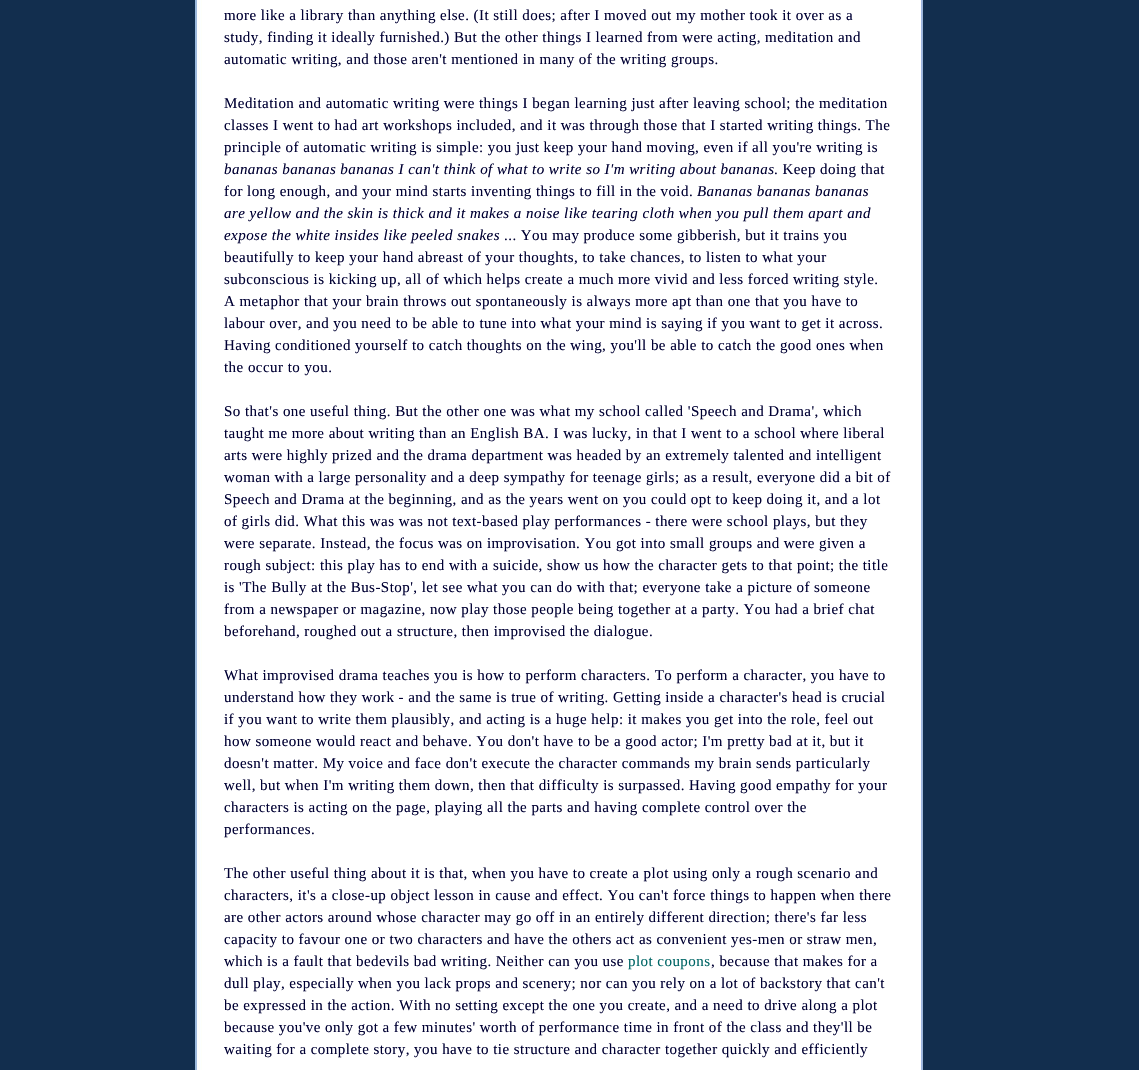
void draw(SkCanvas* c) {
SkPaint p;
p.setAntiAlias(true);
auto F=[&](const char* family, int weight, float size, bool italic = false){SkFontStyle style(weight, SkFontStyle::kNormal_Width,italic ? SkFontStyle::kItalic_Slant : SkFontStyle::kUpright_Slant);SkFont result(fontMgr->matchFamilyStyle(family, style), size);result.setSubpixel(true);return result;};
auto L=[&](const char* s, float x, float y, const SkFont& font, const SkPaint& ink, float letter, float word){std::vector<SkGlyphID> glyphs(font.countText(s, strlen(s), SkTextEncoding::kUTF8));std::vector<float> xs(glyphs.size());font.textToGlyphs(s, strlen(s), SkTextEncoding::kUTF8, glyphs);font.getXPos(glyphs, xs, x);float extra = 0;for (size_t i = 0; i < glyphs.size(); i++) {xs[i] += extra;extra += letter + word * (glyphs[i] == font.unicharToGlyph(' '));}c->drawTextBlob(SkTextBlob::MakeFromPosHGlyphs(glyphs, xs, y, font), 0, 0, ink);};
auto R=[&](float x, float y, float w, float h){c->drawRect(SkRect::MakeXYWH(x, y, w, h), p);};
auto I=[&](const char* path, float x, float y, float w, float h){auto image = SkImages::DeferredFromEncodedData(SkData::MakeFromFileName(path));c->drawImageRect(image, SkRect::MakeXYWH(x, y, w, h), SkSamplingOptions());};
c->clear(0xff122e4e);
I("1.png",195,0,9,1070);
p.setColor(0xffffffff);
R(204,0,709,1070);
auto f1 = F("Liberation Serif",400,15);
p.setColor(0xff000033);
L("more like a library than anything else. (It still does; after I moved out my mother took it over as a",224,20,f1,p,.45,0);
L("study, finding it ideally furnished.) But the other things I learned from were acting, meditation and",224,42,f1,p,.45,0);
L("automatic writing, and those aren't mentioned in many of the writing groups.",224,64,f1,p,.45,0);
L("Meditation and automatic writing were things I began learning just after leaving school; the meditation",224,108,f1,p,.45,0);
L("classes I went to had art workshops included, and it was through those that I started writing things. The",224,130,f1,p,.45,0);
L("principle of automatic writing is simple: you just keep your hand moving, even if all you're writing is",224,152,f1,p,.45,0);
auto f2 = F("Liberation Serif",400,15,true);
L("bananas bananas bananas I can't think of what to write so I'm writing about bananas",224,174,f2,p,.45,0);
L(". Keep doing that",774,174,f1,p,.45,0);
L("for long enough, and your mind starts inventing things to fill in the void.",224,196,f1,p,.45,0);
L("Bananas bananas bananas",697,196,f2,p,.45,0);
L("are yellow and the skin is thick and it makes a noise like tearing cloth when you pull them apart and",224,218,f2,p,.45,0);
L("expose the white insides like peeled snakes",224,240,f2,p,.45,0);
L("... You may produce some gibberish, but it trains you",504,240,f1,p,.45,0);
L("beautifully to keep your hand abreast of your thoughts, to take chances, to listen to what your",224,262,f1,p,.45,0);
L("subconscious is kicking up, all of which helps create a much more vivid and less forced writing style.",224,284,f1,p,.45,0);
L("A metaphor that your brain throws out spontaneously is always more apt than one that you have to",224,306,f1,p,.45,0);
L("labour over, and you need to be able to tune into what your mind is saying if you want to get it across.",224,328,f1,p,.45,0);
L("Having conditioned yourself to catch thoughts on the wing, you'll be able to catch the good ones when",224,350,f1,p,.45,0);
L("the occur to you.",224,372,f1,p,.45,0);
L("So that's one useful thing. But the other one was what my school called 'Speech and Drama', which",224,416,f1,p,.45,0);
L("taught me more about writing than an English BA. I was lucky, in that I went to a school where liberal",224,438,f1,p,.45,0);
L("arts were highly prized and the drama department was headed by an extremely talented and intelligent",224,460,f1,p,.45,0);
L("woman with a large personality and a deep sympathy for teenage girls; as a result, everyone did a bit of",224,482,f1,p,.45,0);
L("Speech and Drama at the beginning, and as the years went on you could opt to keep doing it, and a lot",224,504,f1,p,.45,0);
L("of girls did. What this was was not text-based play performances - there were school plays, but they",224,526,f1,p,.45,0);
L("were separate. Instead, the focus was on improvisation. You got into small groups and were given a",224,548,f1,p,.45,0);
L("rough subject: this play has to end with a suicide, show us how the character gets to that point; the title",224,570,f1,p,.45,0);
L("is 'The Bully at the Bus-Stop', let see what you can do with that; everyone take a picture of someone",224,592,f1,p,.45,0);
L("from a newspaper or magazine, now play those people being together at a party. You had a brief chat",224,614,f1,p,.45,0);
L("beforehand, roughed out a structure, then improvised the dialogue.",224,636,f1,p,.45,0);
L("What improvised drama teaches you is how to perform characters. To perform a character, you have to",224,680,f1,p,.45,0);
L("understand how they work - and the same is true of writing. Getting inside a character's head is crucial",224,702,f1,p,.45,0);
L("if you want to write them plausibly, and acting is a huge help: it makes you get into the role, feel out",224,724,f1,p,.45,0);
L("how someone would react and behave. You don't have to be a good actor; I'm pretty bad at it, but it",224,746,f1,p,.45,0);
L("doesn't matter. My voice and face don't execute the character commands my brain sends particularly",224,768,f1,p,.45,0);
L("well, but when I'm writing them down, then that difficulty is surpassed. Having good empathy for your",224,790,f1,p,.45,0);
L("characters is acting on the page, playing all the parts and having complete control over the",224,812,f1,p,.45,0);
L("performances.",224,834,f1,p,.45,0);
L("The other useful thing about it is that, when you have to create a plot using only a rough scenario and",224,878,f1,p,.45,0);
L("characters, it's a close-up object lesson in cause and effect. You can't force things to happen when there",224,900,f1,p,.45,0);
L("are other actors around whose character may go off in an entirely different direction; there's far less",224,922,f1,p,.45,0);
L("capacity to favour one or two characters and have the others act as convenient yes-men or straw men,",224,944,f1,p,.45,0);
L("which is a fault that bedevils bad writing. Neither can you use",224,966,f1,p,.45,0);
p.setColor(0xff006666);
L("plot coupons",628,966,f1,p,.45,0);
p.setColor(0xff000033);
L(", because that makes for a",711,966,f1,p,.45,0);
L("dull play, especially when you lack props and scenery; nor can you rely on a lot of backstory that can't",224,988,f1,p,.45,0);
L("be expressed in the action. With no setting except the one you create, and a need to drive along a plot",224,1010,f1,p,.45,0);
L("because you've only got a few minutes' worth of performance time in front of the class and they'll be",224,1032,f1,p,.45,0);
L("waiting for a complete story, you have to tie structure and character together quickly and efficiently",224,1054,f1,p,.45,0);
I("2.png",913,0,10,1070);
}
